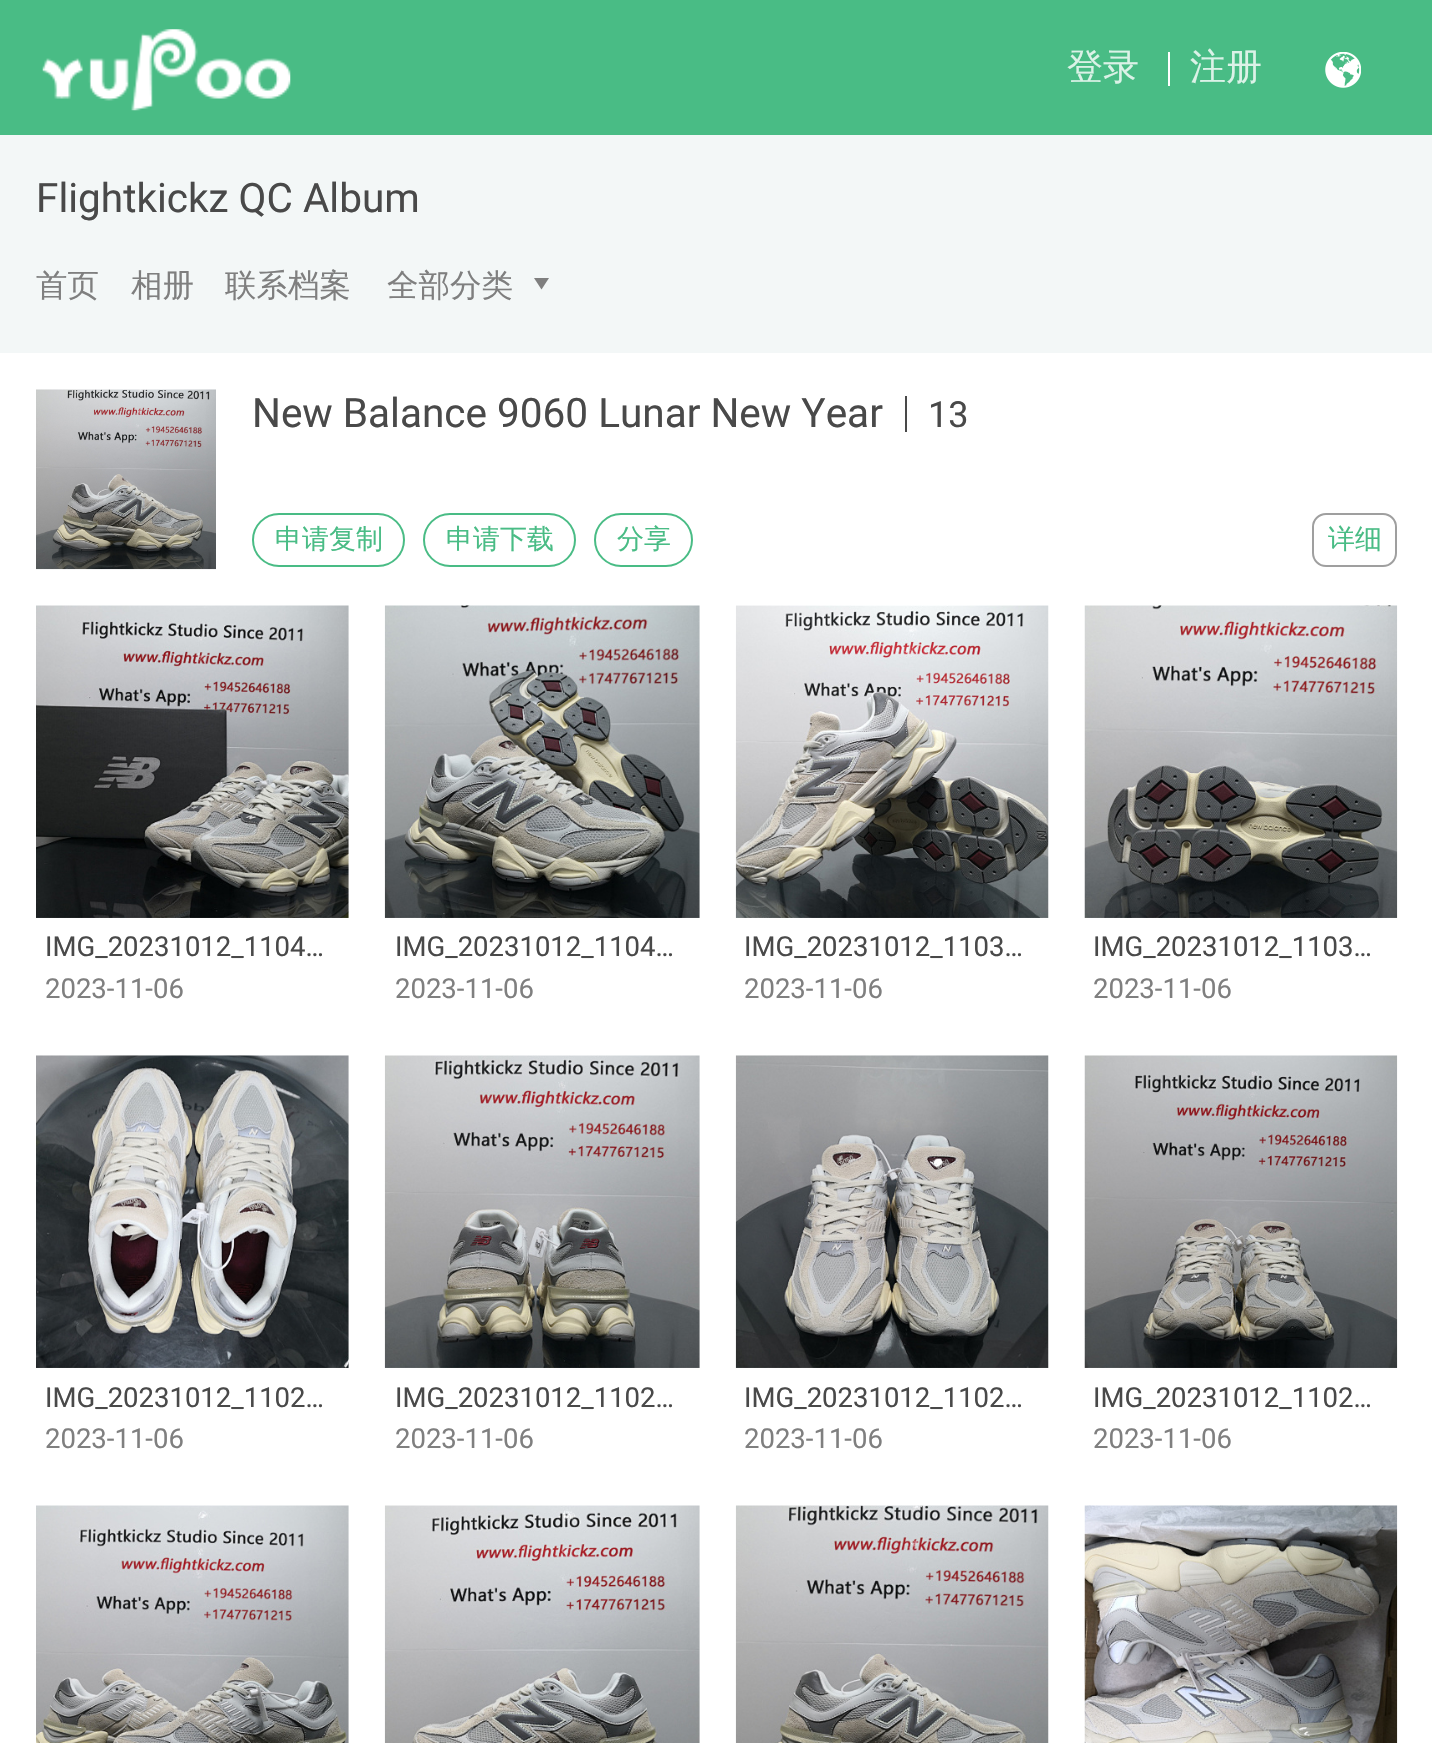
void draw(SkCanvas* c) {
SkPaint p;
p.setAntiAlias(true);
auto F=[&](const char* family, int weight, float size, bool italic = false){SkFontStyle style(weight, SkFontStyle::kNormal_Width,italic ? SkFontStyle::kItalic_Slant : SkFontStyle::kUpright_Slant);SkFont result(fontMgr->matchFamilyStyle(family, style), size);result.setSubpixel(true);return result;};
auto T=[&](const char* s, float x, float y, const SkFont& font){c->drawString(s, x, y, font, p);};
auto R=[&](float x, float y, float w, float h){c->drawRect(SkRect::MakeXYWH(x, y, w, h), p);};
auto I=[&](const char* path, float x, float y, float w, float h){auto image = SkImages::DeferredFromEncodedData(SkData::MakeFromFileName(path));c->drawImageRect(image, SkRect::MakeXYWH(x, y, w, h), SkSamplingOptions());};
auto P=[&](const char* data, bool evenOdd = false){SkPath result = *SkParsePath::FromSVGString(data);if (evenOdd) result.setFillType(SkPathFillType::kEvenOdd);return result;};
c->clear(0xffffffff);
p.setColor(0xff49bc85);
R(0,0,1432,135);
I("1.png",42,29,249,82);
auto f1 = F("WenQuanYi Zen Hei",500,36);
p.setColor(0xffdbf2e7);
T("登录",1067,79,f1);
p.setColor(0xffffffff);
R(1168,52,2,34);
p.setColor(0xffdbf2e7);
T("注册",1190,79,f1);
I("2.png",1325,52,36,36);
p.setColor(0xfff3f7f7);
R(0,135,1432,218);
auto f2 = F("Roboto",400,40.5);
p.setColor(0xff494949);
T("Flightkickz QC Album",36,212,f2);
auto f3 = F("WenQuanYi Zen Hei",500,31.5);
p.setColor(0xff7f7f7f);
T("首页",36,296,f3);
T("相册",131,296,f3);
T("联系档案",225,296,f3);
T("全部分类",387,296,f3);
c->drawPath(P("M541.5 289.5l-7.5-11.5h15z"),p);
I("3.png",36,389,180,181);
p.setColor(0xff494949);
T("New Balance 9060 Lunar New Year",252,427,f2);
R(905,396,2,36);
auto f4 = F("Roboto",400,36);
T("13",928,427,f4);
p.setStroke(true);
p.setStrokeWidth(2);
p.setColor(0xff49bc85);
c->drawRoundRect(SkRect::MakeXYWH(253,514,151,52),26,26,p);
auto f5 = F("WenQuanYi Zen Hei",500,27);
p.setStroke(false);
T("申请复制",275,548,f5);
p.setStroke(true);
c->drawRoundRect(SkRect::MakeXYWH(424,514,151,52),26,26,p);
p.setStroke(false);
T("申请下载",446,548,f5);
p.setStroke(true);
c->drawRoundRect(SkRect::MakeXYWH(595,514,97,52),26,26,p);
p.setStroke(false);
T("分享",617,548,f5);
p.setStroke(true);
p.setColor(0xff9f9f9f);
c->drawRoundRect(SkRect::MakeXYWH(1313,514,83,52),13,13,p);
p.setStroke(false);
p.setColor(0xff49bc85);
T("详细",1328,548,f5);
I("4.png",36,605,313,313);
auto f6 = F("Roboto",400,27.5);
p.setColor(0xff494949);
T("IMG_20231012_1104…",45,956,f6);
p.setColor(0xff7f7f7f);
T("2023-11-06",45,998,f6);
I("5.png",384,605,316,313);
p.setColor(0xff494949);
T("IMG_20231012_1104…",395,956,f6);
p.setColor(0xff7f7f7f);
T("2023-11-06",395,998,f6);
I("6.png",735,605,314,313);
p.setColor(0xff494949);
T("IMG_20231012_1103…",744,956,f6);
p.setColor(0xff7f7f7f);
T("2023-11-06",744,998,f6);
I("7.png",1084,605,314,313);
p.setColor(0xff494949);
T("IMG_20231012_1103…",1093,956,f6);
p.setColor(0xff7f7f7f);
T("2023-11-06",1093,998,f6);
I("8.png",36,1055,313,313);
p.setColor(0xff494949);
T("IMG_20231012_1102…",45,1407,f6);
p.setColor(0xff7f7f7f);
T("2023-11-06",45,1448,f6);
I("9.png",384,1055,316,313);
p.setColor(0xff494949);
T("IMG_20231012_1102…",395,1407,f6);
p.setColor(0xff7f7f7f);
T("2023-11-06",395,1448,f6);
I("10.png",735,1055,314,313);
p.setColor(0xff494949);
T("IMG_20231012_1102…",744,1407,f6);
p.setColor(0xff7f7f7f);
T("2023-11-06",744,1448,f6);
I("11.png",1084,1055,314,313);
p.setColor(0xff494949);
T("IMG_20231012_1102…",1093,1407,f6);
p.setColor(0xff7f7f7f);
T("2023-11-06",1093,1448,f6);
I("12.png",36,1505,313,238);
I("13.png",384,1505,316,238);
I("14.png",735,1505,314,238);
I("15.png",1084,1505,314,238);
}
